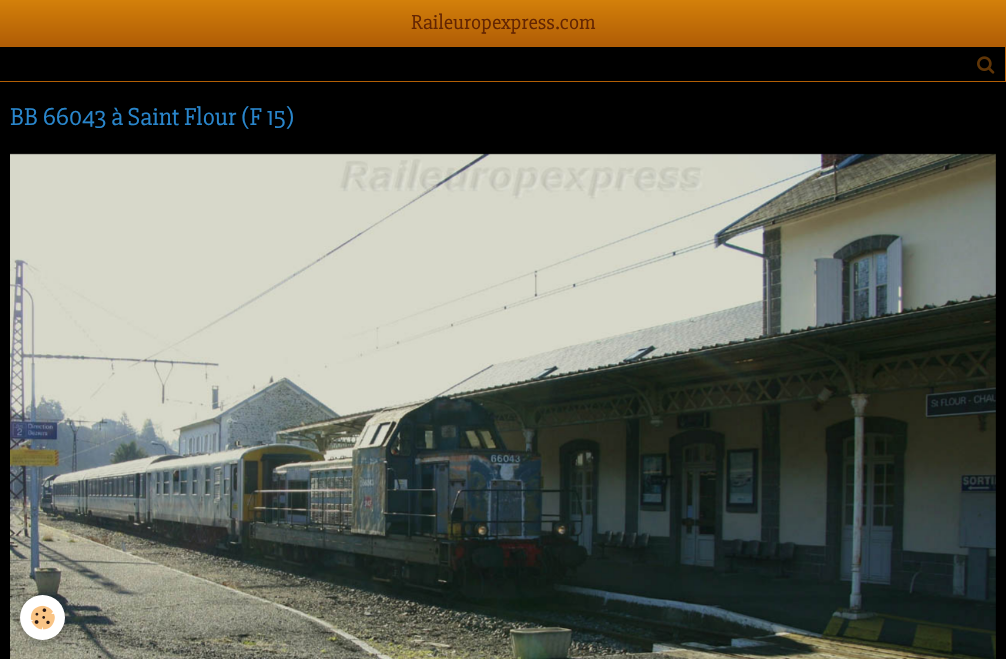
void draw(SkCanvas* c) {
SkPaint p;
p.setAntiAlias(true);
auto F=[&](const char* family, int weight, float size, bool italic = false){SkFontStyle style(weight, SkFontStyle::kNormal_Width,italic ? SkFontStyle::kItalic_Slant : SkFontStyle::kUpright_Slant);SkFont result(fontMgr->matchFamilyStyle(family, style), size);result.setSubpixel(true);return result;};
auto T=[&](const char* s, float x, float y, const SkFont& font){c->drawString(s, x, y, font, p);};
auto R=[&](float x, float y, float w, float h){c->drawRect(SkRect::MakeXYWH(x, y, w, h), p);};
auto I=[&](const char* path, float x, float y, float w, float h){auto image = SkImages::DeferredFromEncodedData(SkData::MakeFromFileName(path));c->drawImageRect(image, SkRect::MakeXYWH(x, y, w, h), SkSamplingOptions());};
c->clear(0xff000000);
{
const SkColor colors[] = {0xffd3800a,0xff954102};
const float stops[] = {0,1};
const SkPoint ends[] = {{503,0}, {503,82}};
p.setShader(SkGradientShader::MakeLinear(ends, colors, stops, 2, SkTileMode::kClamp));
p.setAlpha(255);
}
R(0,0,1006,46);
auto f1 = F("Slabo 27px",400,21);
p.setShader(nullptr);
p.setColor(0xff642502);
T("Raileuropexpress.com",411,29,f1);
p.setColor(0xffb35f05);
R(0,46,1006,1);
R(0,81,1006,1);
R(1005,47,1,34);
I("1.png",977,56,18,18);
auto f2 = F("Slabo 27px",400,25.25);
p.setColor(0xff2986cc);
T("BB 66043 à Saint Flour (F 15)",10,125,f2);
I("2.png",10,153,986,506);
p.setColor(0x3d000000);
p.setMaskFilter(SkMaskFilter::MakeBlur(kNormal_SkBlurStyle, 5));
c->drawRoundRect(SkRect::MakeXYWH(20,598,45,45),22.5,22.5,p);
p.setMaskFilter(nullptr);
p.setColor(0xffffffff);
c->drawCircle(42.5,617.5,22.5,p);
I("3.png",30,605,25,25);
}
